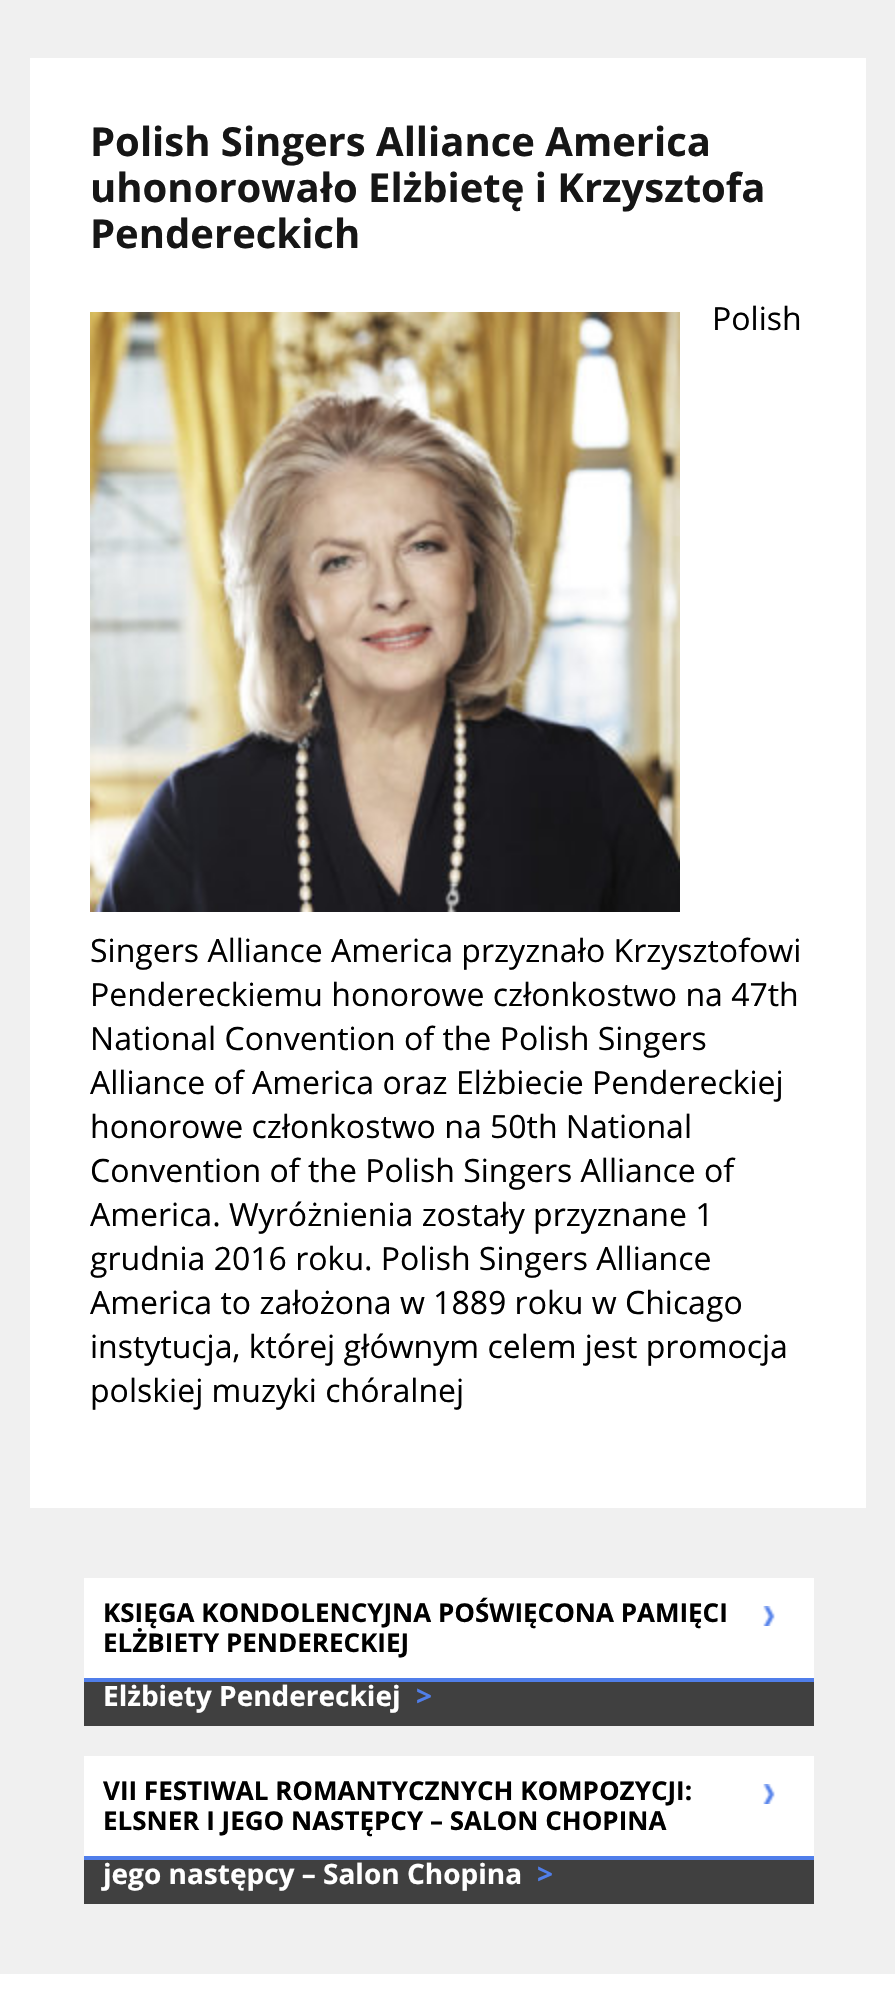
void draw(SkCanvas* c) {
SkPaint p;
p.setAntiAlias(true);
auto F=[&](const char* family, int weight, float size, bool italic = false){SkFontStyle style(weight, SkFontStyle::kNormal_Width,italic ? SkFontStyle::kItalic_Slant : SkFontStyle::kUpright_Slant);SkFont result(fontMgr->matchFamilyStyle(family, style), size);result.setSubpixel(true);return result;};
auto T=[&](const char* s, float x, float y, const SkFont& font){c->drawString(s, x, y, font, p);};
auto R=[&](float x, float y, float w, float h){c->drawRect(SkRect::MakeXYWH(x, y, w, h), p);};
auto I=[&](const char* path, float x, float y, float w, float h){auto image = SkImages::DeferredFromEncodedData(SkData::MakeFromFileName(path));c->drawImageRect(image, SkRect::MakeXYWH(x, y, w, h), SkSamplingOptions());};
c->clear(0xffffffff);
p.setColor(0xfff0f0f0);
R(0,0,895,1974);
p.setColor(0xffffffff);
R(30,58,836,1450);
auto f1 = F("Open Sans",700,40);
p.setColor(0xff161616);
T("Polish Singers Alliance America",90,156,f1);
T("uhonorowało Elżbietę i Krzysztofa",90,202,f1);
T("Pendereckich",90,248,f1);
I("1.png",90,312,590,600);
auto f2 = F("Open Sans",400,32);
p.setColor(0xff000000);
T("Polish",712,330,f2);
T("Singers Alliance America przyznało Krzysztofowi",90,962,f2);
T("Pendereckiemu honorowe członkostwo na 47th",90,1006,f2);
T("National Convention of the Polish Singers",90,1050,f2);
T("Alliance of America oraz Elżbiecie Pendereckiej",90,1094,f2);
T("honorowe członkostwo na 50th National",90,1138,f2);
T("Convention of the Polish Singers Alliance of",90,1182,f2);
T("America. Wyróżnienia zostały przyznane 1",90,1226,f2);
T("grudnia 2016 roku. Polish Singers Alliance",90,1270,f2);
T("America to założona w 1889 roku w Chicago",90,1314,f2);
T("instytucja, której głównym celem jest promocja",90,1358,f2);
T("polskiej muzyki chóralnej",90,1402,f2);
p.setColor(0xffffffff);
R(84,1578,730,100);
p.setColor(0xff507eea);
R(84,1678,730,4);
auto f3 = F("Open Sans",700,26);
p.setColor(0xff000000);
T("KSIĘGA KONDOLENCYJNA POŚWIĘCONA PAMIĘCI",103,1622,f3);
T("ELŻBIETY PENDERECKIEJ",103,1652,f3);
I("2.png",763,1606,12,20);
p.setColor(0xff404040);
R(84,1682,730,44);
auto f4 = F("Open Sans",700,28);
p.setColor(0xffffffff);
T("Elżbiety Pendereckiej",103,1706,f4);
p.setColor(0xff507eea);
T(">",416,1706,f4);
p.setColor(0xffffffff);
R(84,1756,730,100);
p.setColor(0xff507eea);
R(84,1856,730,4);
p.setColor(0xff000000);
T("VII FESTIWAL ROMANTYCZNYCH KOMPOZYCJI:",103,1800,f3);
T("ELSNER I JEGO NASTĘPCY – SALON CHOPINA",103,1830,f3);
I("2.png",763,1784,12,20);
p.setColor(0xff404040);
R(84,1860,730,44);
p.setColor(0xffffffff);
T("jego następcy – Salon Chopina",103,1884,f4);
p.setColor(0xff507eea);
T(">",537,1884,f4);
}
